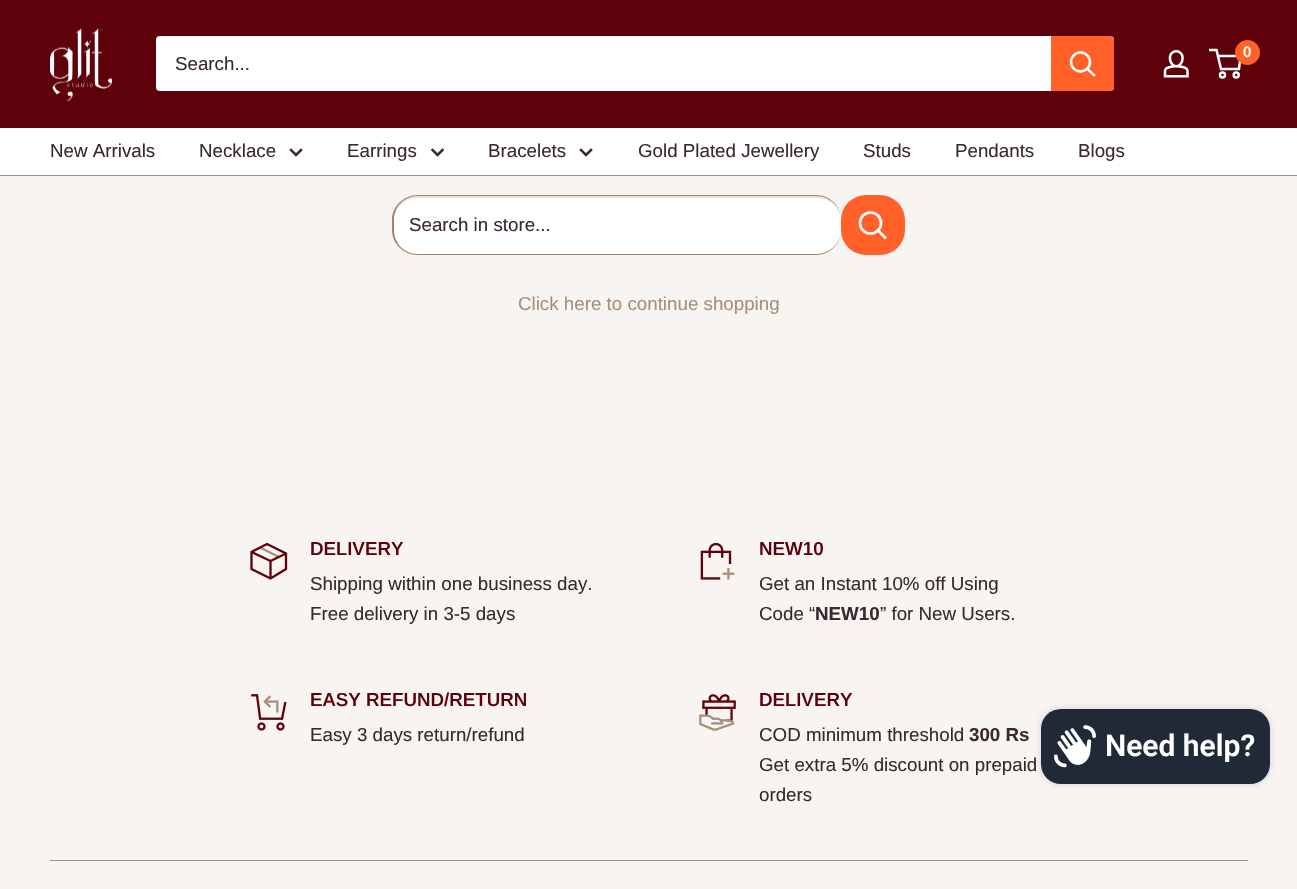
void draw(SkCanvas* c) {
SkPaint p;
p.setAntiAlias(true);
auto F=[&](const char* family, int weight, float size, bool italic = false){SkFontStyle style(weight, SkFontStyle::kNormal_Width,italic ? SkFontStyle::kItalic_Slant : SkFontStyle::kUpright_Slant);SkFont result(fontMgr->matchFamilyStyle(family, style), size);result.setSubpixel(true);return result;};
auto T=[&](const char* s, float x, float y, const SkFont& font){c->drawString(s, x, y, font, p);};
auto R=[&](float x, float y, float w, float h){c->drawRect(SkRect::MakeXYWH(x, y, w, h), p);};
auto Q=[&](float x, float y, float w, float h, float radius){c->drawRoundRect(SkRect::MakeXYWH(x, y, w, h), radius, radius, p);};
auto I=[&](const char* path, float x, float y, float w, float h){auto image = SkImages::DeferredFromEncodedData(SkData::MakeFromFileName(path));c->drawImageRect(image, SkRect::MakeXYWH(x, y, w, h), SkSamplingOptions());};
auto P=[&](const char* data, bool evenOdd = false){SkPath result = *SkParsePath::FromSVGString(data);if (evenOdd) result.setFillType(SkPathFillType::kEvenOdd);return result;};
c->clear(0xfff7f4f2);
p.setColor(0xff5e010b);
R(0,0,1297,128);
I("1.png",50,28,63,74);
I("2.png",1163,50,26,28);
p.setStroke(true);
p.setStrokeWidth(2.5);
p.setColor(0xffffffff);
c->drawCircle(1222.5,75,2.5,p);
c->drawCircle(1236.2,75,2.5,p);
c->drawPath(P("M1218 56h22.5l-1.5 13h-18l-4.5-19h-7.5"),p);
p.setStroke(false);
p.setColor(0xffff6128);
c->drawCircle(1247.5,52.5,12.5,p);
auto f1 = F("Arimo",600,15);
p.setColor(0xffffffff);
T("0",1243,57,f1);
Q(156,36,958,55,4);
auto f2 = F("Arimo",400,18.75);
p.setColor(0xff3a2a2f);
T("Search...",175,70,f2);
p.setColor(0xffff6128);
c->drawPath(P("M1051 36h59c2 0 4 2 4 4v47c0 2-2 4-4 4h-59z"),p);
p.setStroke(true);
p.setStrokeCap(SkPaint::kSquare_Cap);
p.setColor(0xffffffff);
c->drawPath(P("M1094 75l-6.5-6"),p);
p.setStrokeCap(SkPaint::kButt_Cap);
c->drawCircle(1080.5,62,9.5,p);
p.setStroke(false);
R(0,128,1297,47);
p.setColor(0xffa6907b);
R(0,175,1297,1);
p.setColor(0xff3a2a2f);
T("New Arrivals",50,157,f2);
T("Necklace",199,157,f2);
p.setStroke(true);
p.setStrokeCap(SkPaint::kSquare_Cap);
c->drawPath(P("M301 150l-5 5l-5-5"),p);
p.setStroke(false);
T("Earrings",347,157,f2);
p.setStroke(true);
c->drawPath(P("M442.5 150l-5 5l-5-5"),p);
p.setStroke(false);
T("Bracelets",488,157,f2);
p.setStroke(true);
c->drawPath(P("M591 150l-5 5l-5-5"),p);
p.setStroke(false);
T("Gold Plated Jewellery",638,157,f2);
T("Studs",863,157,f2);
T("Pendants",955,157,f2);
T("Blogs",1078,157,f2);
p.setColor(0xffffffff);
Q(393,195,448,60,25);
p.setColor(0xffe9e3de);
c->drawPath(P("M418 198h398c14 0 25 10 25 23v10l-1 5l1-6v-10c0-13-11-24-25-24h-398c-14 0-24 11-24 24v10v6v-10v-10c3-11 13-18 24-18z"),p);
p.setColor(0xff9c836c);
c->drawPath(P("M418 195h398c14 0 25 11 25 25v10c0 14-11 25-25 25h-398c-14 0-26-11-26-25v-10c0-14 12-25 26-25zm0 1h398c14 0 25 11 25 24v10c0 13-11 24-25 24h-398c-14 0-24-11-24-24v-10c0-13 10-24 24-24z",true),p);
p.setColor(0xff3a2a2f);
T("Search in store...",409,231,f2);
p.setColor(0xffff6128);
Q(841,195,64,60,25);
p.setStroke(true);
p.setStrokeWidth(2.7);
p.setColor(0xffffffff);
c->drawPath(P("M885 237.5l-7-7"),p);
p.setStrokeCap(SkPaint::kButt_Cap);
c->drawCircle(870.5,223,10.5,p);
p.setStroke(false);
p.setColor(0xffa6907b);
T("Click here to continue shopping",518,310,f2);
p.setStroke(true);
p.setStrokeWidth(2.3);
c->drawPath(P("M260 547.5l19 9.5"),p);
p.setColor(0xff5e010b);
c->drawPath(P("M286 553.5l-15.5 7.5l-19-9m19 9v17.5"),p);
p.setStrokeCap(SkPaint::kSquare_Cap);
c->drawPath(P("M286 553.5v15.5l-15.5 9.5l-19-9.5v-17l15.5-8z"),p);
auto f3 = F("Arimo",600,18.75);
p.setStroke(false);
T("DELIVERY",310,555,f3);
p.setColor(0xff3a2a2f);
T("Shipping within one business day.",310,590,f2);
T("Free delivery in 3-5 days",310,620,f2);
I("3.png",700,543,35,37);
p.setColor(0xff5e010b);
T("NEW10",759,555,f3);
p.setColor(0xff3a2a2f);
T("Get an Instant 10% off Using",759,590,f2);
T("Code “",759,620,f2);
auto f4 = F("Arimo",700,18.75);
T("NEW10",815,620,f4);
T("” for New Users.",880,620,f2);
I("4.png",251,694,36,37);
p.setColor(0xff5e010b);
T("EASY REFUND/RETURN",310,706,f3);
p.setColor(0xff3a2a2f);
T("Easy 3 days return/refund",310,741,f2);
I("5.png",699,694,37,37);
p.setColor(0xff5e010b);
T("DELIVERY",759,706,f3);
p.setColor(0xff3a2a2f);
T("COD minimum threshold",759,741,f2);
T("300 Rs",969,741,f4);
T("Get extra 5% discount on prepaid",759,771,f2);
T("orders",759,801,f2);
p.setColor(0x26000000);
p.setMaskFilter(SkMaskFilter::MakeBlur(kNormal_SkBlurStyle, 3));
c->drawRoundRect(SkRect::MakeXYWH(1041,709,229,75),20,20,p);
p.setMaskFilter(nullptr);
p.setColor(0xff202a36);
Q(1041,709,229,75,20);
I("6.png",1054,725,42,43);
auto f5 = F("Roboto",600,30);
p.setColor(0xffffffff);
T("Need help?",1105,756,f5);
p.setColor(0xffa6907b);
R(50,860,1198,1);
}
